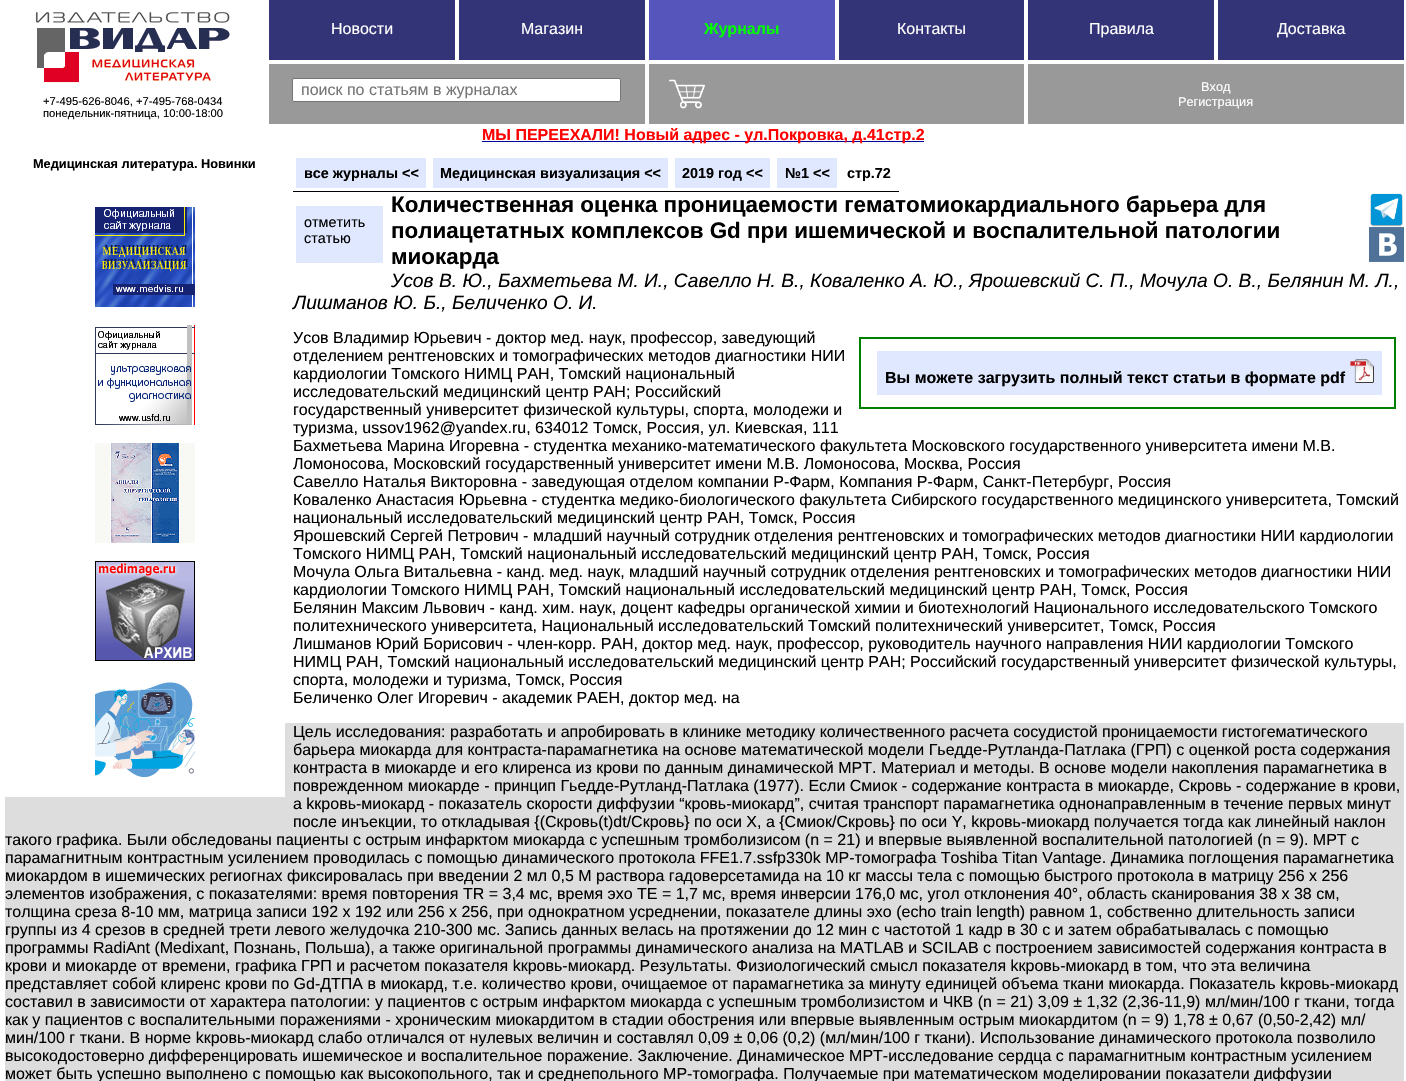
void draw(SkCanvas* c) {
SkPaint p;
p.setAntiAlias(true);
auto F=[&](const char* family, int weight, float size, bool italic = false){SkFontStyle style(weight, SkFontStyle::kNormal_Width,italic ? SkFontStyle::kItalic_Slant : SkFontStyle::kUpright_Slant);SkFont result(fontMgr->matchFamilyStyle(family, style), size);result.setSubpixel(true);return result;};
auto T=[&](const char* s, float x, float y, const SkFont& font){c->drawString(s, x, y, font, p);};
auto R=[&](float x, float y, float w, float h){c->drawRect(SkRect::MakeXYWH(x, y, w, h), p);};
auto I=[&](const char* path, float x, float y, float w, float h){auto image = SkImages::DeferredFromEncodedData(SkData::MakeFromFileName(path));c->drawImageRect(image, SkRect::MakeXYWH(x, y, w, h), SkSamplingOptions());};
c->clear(0xffffffff);
p.setColor(0xff333377);
R(269,0,186,60);
auto f1 = F("Liberation Sans",400,16);
p.setColor(0xffffffff);
T("Новости",331,34,f1);
p.setColor(0xff333377);
R(459,0,186,60);
p.setColor(0xffffffff);
T("Магазин",521,34,f1);
p.setColor(0xff5555bb);
R(649,0,186,60);
auto f2 = F("Liberation Sans",700,16);
p.setColor(0xff00ff00);
T("Журналы",704,34,f2);
p.setColor(0xff333377);
R(839,0,185,60);
p.setColor(0xffffffff);
T("Контакты",897,34,f1);
p.setColor(0xff333377);
R(1028,0,186,60);
p.setColor(0xffffffff);
T("Правила",1089,34,f1);
p.setColor(0xff333377);
R(1218,0,186,60);
p.setColor(0xffffffff);
T("Доставка",1277,34,f1);
I("1.png",35,12,195,71);
auto f3 = F("Liberation Sans",400,11.25);
p.setColor(0xff000000);
T("+7-495-626-8046, +7-495-768-0434",43,105,f3);
T("понедельник-пятница, 10:00-18:00",43,117,f3);
p.setColor(0xff999999);
R(269,64,376,60);
p.setColor(0xffffffff);
c->drawRoundRect(SkRect::MakeXYWH(292.5,78.5,328,23),1.5,1.5,p);
p.setStroke(true);
p.setStrokeWidth(1);
p.setColor(0xff767676);
c->drawRoundRect(SkRect::MakeXYWH(292.5,78.5,328,23),1.5,1.5,p);
p.setStroke(false);
p.setColor(0xff757575);
T("поиск по статьям в журналах",301,95,f1);
p.setColor(0xff999999);
R(649,64,375,60);
I("2.png",669,79,36,30);
R(1028,64,376,60);
auto f4 = F("Liberation Sans",400,12.75);
p.setColor(0xffffffff);
T("Вход",1201,91,f4);
T("Регистрация",1178,106,f4);
p.setColor(0xff000099);
R(482,141,442,1);
p.setColor(0xffff0000);
T("МЫ ПЕРЕЕХАЛИ! Новый адрес - ул.Покровка, д.41стр.2",482,140,f2);
auto f5 = F("Liberation Sans",700,12.75);
p.setColor(0xff000000);
T("Медицинская литература. Новинки",33,168,f5);
p.setColor(0xffdddddd);
R(5,723,1399,358);
p.setColor(0xffffffff);
R(5,723,280,74);
I("3.png",95,207,100,100);
I("4.png",95,325,100,100);
I("5.png",95,443,100,100);
I("6.png",95,561,100,100);
I("7.png",95,682,100,95);
p.setColor(0xff000000);
R(293,191,606,1);
p.setColor(0xffe0e8ff);
R(296,158,130,30);
auto f6 = F("Liberation Sans",700,14.4);
p.setColor(0xff000000);
T("вce журналы <<",304,178,f6);
p.setColor(0xffe0e8ff);
R(433,158,235,30);
p.setColor(0xff000000);
T("Медицинская визуализация <<",440,178,f6);
p.setColor(0xffe0e8ff);
R(675,158,95,30);
p.setColor(0xff000000);
T("2019 год <<",682,178,f6);
p.setColor(0xffe0e8ff);
R(777,158,60,30);
p.setColor(0xff000000);
T("№1 <<",785,178,f6);
T("стр.72",847,178,f6);
p.setColor(0xffe0e8ff);
R(296,206,87,57);
auto f7 = F("Liberation Sans",400,14.4);
p.setColor(0xff000000);
T("отметить",304,227,f7);
T("статью",304,243,f7);
auto f8 = F("Liberation Sans",700,22.4);
T("Количественная оценка проницаемости гематомиокардиального барьера для",391,212,f8);
T("полиацетатных комплексов Gd при ишемической и воспалительной патологии",391,238,f8);
T("миокарда",391,264,f8);
I("8.png",1370,193,33,34);
I("9.png",1369,227,35,35);
auto f9 = F("Liberation Sans",400,19.2,true);
T("Усов В. Ю., Бахметьева М. И., Савелло Н. В., Коваленко А. Ю., Ярошевский С. П., Мочула О. В., Белянин М. Л.,",391,287,f9);
T("Лишманов Ю. Б., Беличенко О. И.",293,309,f9);
T("Усов Владимир Юрьевич - доктор мед. наук, профессор, заведующий",293,343,f1);
T("отделением рентгеновских и томографических методов диагностики НИИ",293,361,f1);
T("кардиологии Томского НИМЦ РАН, Томский национальный",293,379,f1);
T("исследовательский медицинский центр РАН; Российский",293,397,f1);
T("государственный университет физической культуры, спорта, молодежи и",293,415,f1);
T("туризма, ussov1962@yandex.ru, 634012 Томск, Россия, ул. Киевская, 111",293,433,f1);
T("Бахметьева Марина Игоревна - студентка механико-математического факультета Московского государственного университета имени М.В.",293,451,f1);
T("Ломоносова, Московский государственный университет имени М.В. Ломоносова, Москва, Россия",293,469,f1);
T("Савелло Наталья Викторовна - заведующая отделом компании Р-Фарм, Компания Р-Фарм, Санкт-Петербург, Россия",293,487,f1);
T("Коваленко Анастасия Юрьевна - студентка медико-биологического факультета Сибирского государственного медицинского университета, Томский",293,505,f1);
T("национальный исследовательский медицинский центр РАН, Томск, Россия",293,523,f1);
T("Ярошевский Сергей Петрович - младший научный сотрудник отделения рентгеновских и томографических методов диагностики НИИ кардиологии",293,541,f1);
T("Томского НИМЦ РАН, Томский национальный исследовательский медицинский центр РАН, Томск, Россия",293,559,f1);
T("Мочула Ольга Витальевна - канд. мед. наук, младший научный сотрудник отделения рентгеновских и томографических методов диагностики НИИ",293,577,f1);
T("кардиологии Томского НИМЦ РАН, Томский национальный исследовательский медицинский центр РАН, Томск, Россия",293,595,f1);
T("Белянин Максим Львович - канд. хим. наук, доцент кафедры органической химии и биотехнологий Национального исследовательского Томского",293,613,f1);
T("политехнического университета, Национальный исследовательский Томский политехнический университет, Томск, Россия",293,631,f1);
T("Лишманов Юрий Борисович - член-корр. РАН, доктор мед. наук, профессор, руководитель научного направления НИИ кардиологии Томского",293,649,f1);
T("НИМЦ РАН, Томский национальный исследовательский медицинский центр РАН; Российский государственный университет физической культуры,",293,667,f1);
T("спорта, молодежи и туризма, Томск, Россия",293,685,f1);
T("Беличенко Олег Игоревич - академик РАЕН, доктор мед. на",293,703,f1);
p.setStroke(true);
p.setStrokeWidth(2);
p.setColor(0xff008000);
c->drawRect(SkRect::MakeXYWH(860,338,535,70),p);
p.setStroke(false);
p.setColor(0xffe0e8ff);
R(877,351,505,44);
p.setColor(0xff000000);
T("Вы можете загрузить полный текст статьи в формате pdf",885,383,f2);
I("10.png",1350,359,24,24);
T("Цель исследования: разработать и апробировать в клинике методику количественного расчета сосудистой проницаемости гистогематического",293,737,f1);
T("барьера миокарда для контраста-парамагнетика на основе математической модели Гьедде-Рутланда-Патлака (ГРП) с оценкой роста содержания",293,755,f1);
T("контраста в миокарде и его клиренса из крови по данным динамической МРТ. Материал и методы. В основе модели накопления парамагнетика в",293,773,f1);
T("поврежденном миокарде - принцип Гьедде-Рутланд-Патлака (1977). Если Смиок - содержание контраста в миокарде, Скровь - содержание в крови,",293,791,f1);
T("а kкровь-миокард - показатель скорости диффузии “кровь-миокард”, считая транспорт парамагнетика однонаправленным в течение первых минут",293,809,f1);
T("после инъекции, то откладывая {(Скровь(t)dt/Скровь} по оси X, а {Смиок/Скровь} по оси Y, kкровь-миокард получается тогда как линейный наклон",293,827,f1);
T("такого графика. Были обследованы пациенты с острым инфарктом миокарда с успешным тромболизисом (n = 21) и впервые выявленной воспалительной патологией (n = 9). МРТ с",5,845,f1);
T("парамагнитным контрастным усилением проводилась с помощью динамического протокола FFE1.7.ssfp330k МР-томографа Toshiba Titan Vantage. Динамика поглощения парамагнетика",5,863,f1);
T("миокардом в ишемических региогнах фиксировалась при введении 2 мл 0,5 M раствора гадоверсетамида на 10 кг массы тела с помощью быстрого протокола в матрицу 256 х 256",5,881,f1);
T("элементов изображения, с показателями: время повторения TR = 3,4 мс, время эхо TE = 1,7 мс, время инверсии 176,0 мс, угол отклонения 40°, область сканирования 38 х 38 см,",5,899,f1);
T("толщина среза 8-10 мм, матрица записи 192 х 192 или 256 х 256, при однократном усреднении, показателе длины эхо (echo train length) равном 1, собственно длительность записи",5,917,f1);
T("группы из 4 срезов в средней трети левого желудочка 210-300 мс. Запись данных велась на протяжении до 12 мин с частотой 1 кадр в 30 с и затем обрабатывалась с помощью",5,935,f1);
T("программы RadiAnt (Medixant, Познань, Польша), а также оригинальной программы динамического анализа на MATLAB и SCILAB с построением зависимостей содержания контраста в",5,953,f1);
T("крови и миокарде от времени, графика ГРП и расчетом показателя kкровь-миокард. Результаты. Физиологический смысл показателя kкровь-миокард в том, что эта величина",5,971,f1);
T("представляет собой клиренс крови по Gd-ДТПА в миокард, т.е. количество крови, очищаемое от парамагнетика за минуту единицей объема ткани миокарда. Показатель kкровь-миокард",5,989,f1);
T("составил в зависимости от характера патологии: у пациентов с острым инфарктом миокарда с успешным тромболизистом и ЧКВ (n = 21) 3,09 ± 1,32 (2,36-11,9) мл/мин/100 г ткани, тогда",5,1007,f1);
T("как у пациентов с воспалительными поражениями - хроническим миокардитом в стадии обострения или впервые выявленным острым миокардитом (n = 9) 1,78 ± 0,67 (0,50-2,42) мл/",5,1025,f1);
T("мин/100 г ткани. В норме kкровь-миокард слабо отличался от нулевых величин и составлял 0,09 ± 0,06 (0,2) (мл/мин/100 г ткани). Использование динамического протокола позволило",5,1043,f1);
T("высокодостоверно дифференцировать ишемическое и воспалительное поражение. Заключение. Динамическое МРТ-исследование сердца с парамагнитным контрастным усилением",5,1061,f1);
T("может быть успешно выполнено с помощью как высокопольного, так и среднепольного МР-томографа. Получаемые при математическом моделировании показатели диффузии",5,1079,f1);
}
